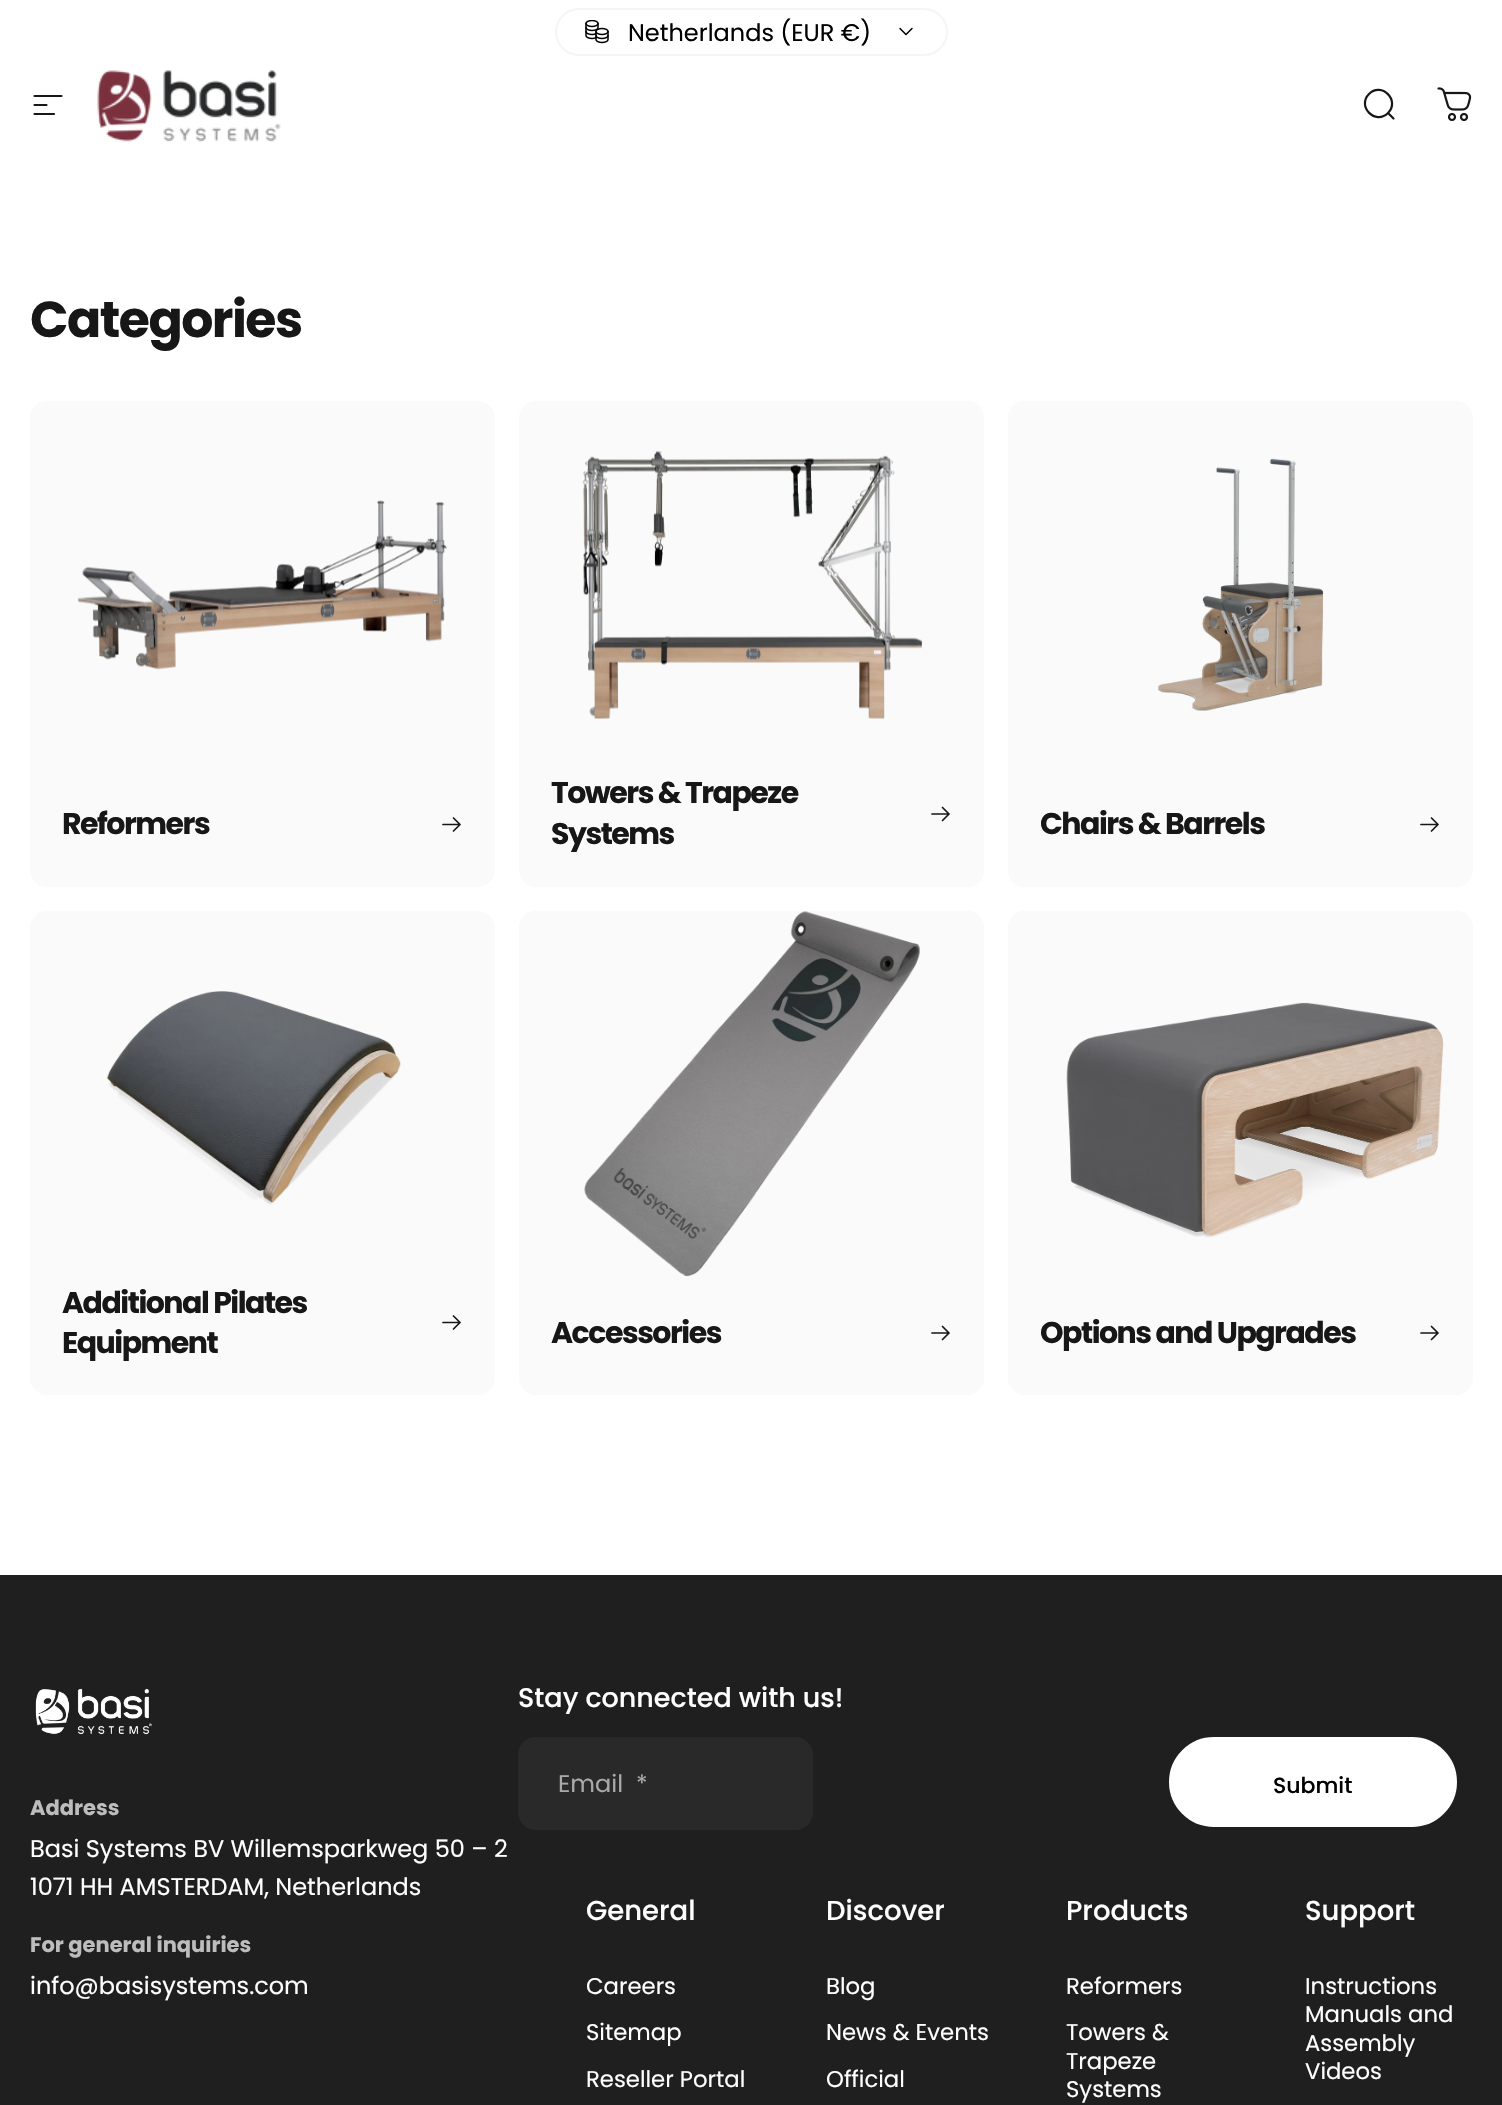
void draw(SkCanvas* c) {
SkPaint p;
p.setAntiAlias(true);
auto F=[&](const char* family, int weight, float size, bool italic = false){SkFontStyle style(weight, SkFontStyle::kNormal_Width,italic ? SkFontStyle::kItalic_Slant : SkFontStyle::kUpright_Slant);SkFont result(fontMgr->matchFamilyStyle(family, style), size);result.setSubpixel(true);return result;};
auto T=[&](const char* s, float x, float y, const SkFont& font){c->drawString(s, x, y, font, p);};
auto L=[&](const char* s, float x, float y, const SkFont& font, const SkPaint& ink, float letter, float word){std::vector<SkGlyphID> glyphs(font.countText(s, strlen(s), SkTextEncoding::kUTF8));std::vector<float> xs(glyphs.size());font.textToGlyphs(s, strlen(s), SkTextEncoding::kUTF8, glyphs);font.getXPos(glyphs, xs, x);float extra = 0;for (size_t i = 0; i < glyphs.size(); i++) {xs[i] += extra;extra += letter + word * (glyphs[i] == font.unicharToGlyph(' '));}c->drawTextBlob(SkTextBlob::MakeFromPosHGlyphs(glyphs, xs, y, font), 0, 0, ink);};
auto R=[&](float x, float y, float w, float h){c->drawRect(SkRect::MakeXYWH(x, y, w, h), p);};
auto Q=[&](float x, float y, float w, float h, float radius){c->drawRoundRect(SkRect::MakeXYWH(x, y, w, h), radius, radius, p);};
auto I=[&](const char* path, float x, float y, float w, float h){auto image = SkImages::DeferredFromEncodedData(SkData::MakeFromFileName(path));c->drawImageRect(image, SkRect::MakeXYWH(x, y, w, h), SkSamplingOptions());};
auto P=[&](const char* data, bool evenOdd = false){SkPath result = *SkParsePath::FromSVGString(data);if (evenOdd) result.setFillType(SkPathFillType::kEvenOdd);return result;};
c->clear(0xffffffff);
p.setStroke(true);
p.setStrokeWidth(2);
p.setColor(0xfff5f5f5);
c->drawRoundRect(SkRect::MakeXYWH(556,9,391,46),23,23,p);
I("1.png",585,20,24,24);
auto f1 = F("Poppins",400,24);
p.setStroke(false);
p.setColor(0xff000000);
T("Netherlands (EUR €)",628,41,f1);
p.setStroke(true);
p.setStrokeWidth(1.5);
p.setStrokeCap(SkPaint::kRound_Cap);
p.setStrokeJoin(SkPaint::kRound_Join);
c->drawPath(P("M900 28.5l6 6l6-6"),p);
p.setStrokeWidth(2.2);
p.setStrokeJoin(SkPaint::kMiter_Join);
p.setColor(0xff171717);
c->drawPath(P("M34.5 96h27m-27 9h12m-12 9h19.5"),p);
I("2.png",97,70,184,72);
c->drawPath(P("M1393.5 118.5l-5.5-5.5m0 0c12.5-12.5-6.5-31.5-19-19c-12.5 12.5 6.5 31.5 19 19z"),p);
I("3.png",1437,87,35,35);
auto f2 = F("Poppins",700,50.5);
p.setStroke(false);
L("Categories",30,337,f2,p,-1.5,0);
p.setColor(0xfffafafa);
Q(30,401,465,486,17);
I("4.png",77,500,370,170);
auto f3 = F("Poppins",700,30);
p.setColor(0xff171717);
L("Reformers",62,834,f3,p,-1.5,0);
p.setStroke(true);
p.setStrokeWidth(1.7);
p.setStrokeJoin(SkPaint::kRound_Join);
c->drawPath(P("M443 824.5h17m0 0l-6.5-6.5m6.5 6.5l-6.5 6.5"),p);
p.setStroke(false);
p.setColor(0xfffafafa);
Q(519,401,465,486,17);
I("5.png",582,450,340,269);
p.setColor(0xff171717);
L("Towers & Trapeze",551,803,f3,p,-1.5,0);
L("Systems",551,844,f3,p,-1.5,0);
p.setStroke(true);
c->drawPath(P("M932 814h17m0 0l-6.5-6.5m6.5 6.5l-6.5 6.5"),p);
p.setStroke(false);
p.setColor(0xfffafafa);
Q(1008,401,465,486,17);
I("6.png",1158,458,166,253);
p.setColor(0xff171717);
L("Chairs & Barrels",1040,834,f3,p,-1.5,0);
p.setStroke(true);
c->drawPath(P("M1421 824.5h17m0 0l-6.5-6.5m6.5 6.5l-6.5 6.5"),p);
p.setStroke(false);
p.setColor(0xfffafafa);
Q(30,911,465,484,17);
I("7.png",106,991,295,214);
p.setColor(0xff171717);
L("Additional Pilates",62,1313,f3,p,-1.5,0);
L("Equipment",62,1353,f3,p,-1.5,0);
p.setStroke(true);
c->drawPath(P("M443 1322.5h17m0 0l-6.5-6.5m6.5 6.5l-6.5 6.5"),p);
p.setStroke(false);
p.setColor(0xfffafafa);
Q(519,911,465,484,17);
I("8.png",584,911,336,366);
p.setColor(0xff171717);
L("Accessories",551,1343,f3,p,-1.5,0);
p.setStroke(true);
c->drawPath(P("M932 1333h17m0 0l-6.5-6.5m6.5 6.5l-6.5 6.5"),p);
p.setStroke(false);
p.setColor(0xfffafafa);
Q(1008,911,465,484,17);
I("9.png",1066,1002,378,236);
p.setColor(0xff171717);
L("Options and Upgrades",1040,1343,f3,p,-1.5,0);
p.setStroke(true);
c->drawPath(P("M1421 1333h17m0 0l-6.5-6.5m6.5 6.5l-6.5 6.5"),p);
p.setStroke(false);
p.setColor(0xff1f1f1f);
R(0,1575,1502,530);
I("10.png",35,1688,117,47);
auto f4 = F("Poppins",500,27);
p.setColor(0xffffffff);
T("Stay connected with us!",518,1707,f4);
p.setColor(0xff292929);
Q(518,1737,295,93,18);
p.setColor(0xffa9a9a9);
T("Email",558,1792,f1);
T("*",636,1792,f1);
p.setColor(0xffffffff);
c->drawRoundRect(SkRect::MakeXYWH(1170.5,1738.5,285,87),43.5,43.5,p);
p.setStroke(true);
p.setStrokeWidth(3);
p.setStrokeCap(SkPaint::kButt_Cap);
p.setStrokeJoin(SkPaint::kMiter_Join);
c->drawRoundRect(SkRect::MakeXYWH(1170.5,1738.5,285,87),43.5,43.5,p);
auto f5 = F("Poppins",500,22);
p.setStroke(false);
p.setColor(0xff000000);
T("Submit",1273,1793,f5);
auto f6 = F("Poppins",700,21);
p.setColor(0xffbdbdbd);
T("Address",30,1815,f6);
p.setColor(0xffffffff);
T("Basi Systems BV Willemsparkweg 50 – 2",30,1857,f1);
T("1071 HH AMSTERDAM, Netherlands",30,1895,f1);
p.setColor(0xffbdbdbd);
T("For general inquiries",30,1952,f6);
p.setColor(0xffffffff);
T("info@basisystems.com",30,1994,f1);
auto f7 = F("Poppins",500,27.5);
T("General",586,1920,f7);
auto f8 = F("Poppins",400,22.75);
T("Careers",586,1994,f8);
T("Sitemap",586,2040,f8);
T("Reseller Portal",586,2087,f8);
T("Discover",826,1920,f7);
T("Blog",826,1994,f8);
T("News & Events",826,2040,f8);
T("Official",826,2087,f8);
T("Products",1066,1920,f7);
T("Reformers",1066,1994,f8);
T("Towers &",1066,2040,f8);
T("Trapeze",1066,2069,f8);
T("Systems",1066,2097,f8);
T("Support",1305,1920,f7);
T("Instructions",1305,1994,f8);
T("Manuals and",1305,2022,f8);
T("Assembly",1305,2051,f8);
T("Videos",1305,2079,f8);
}
